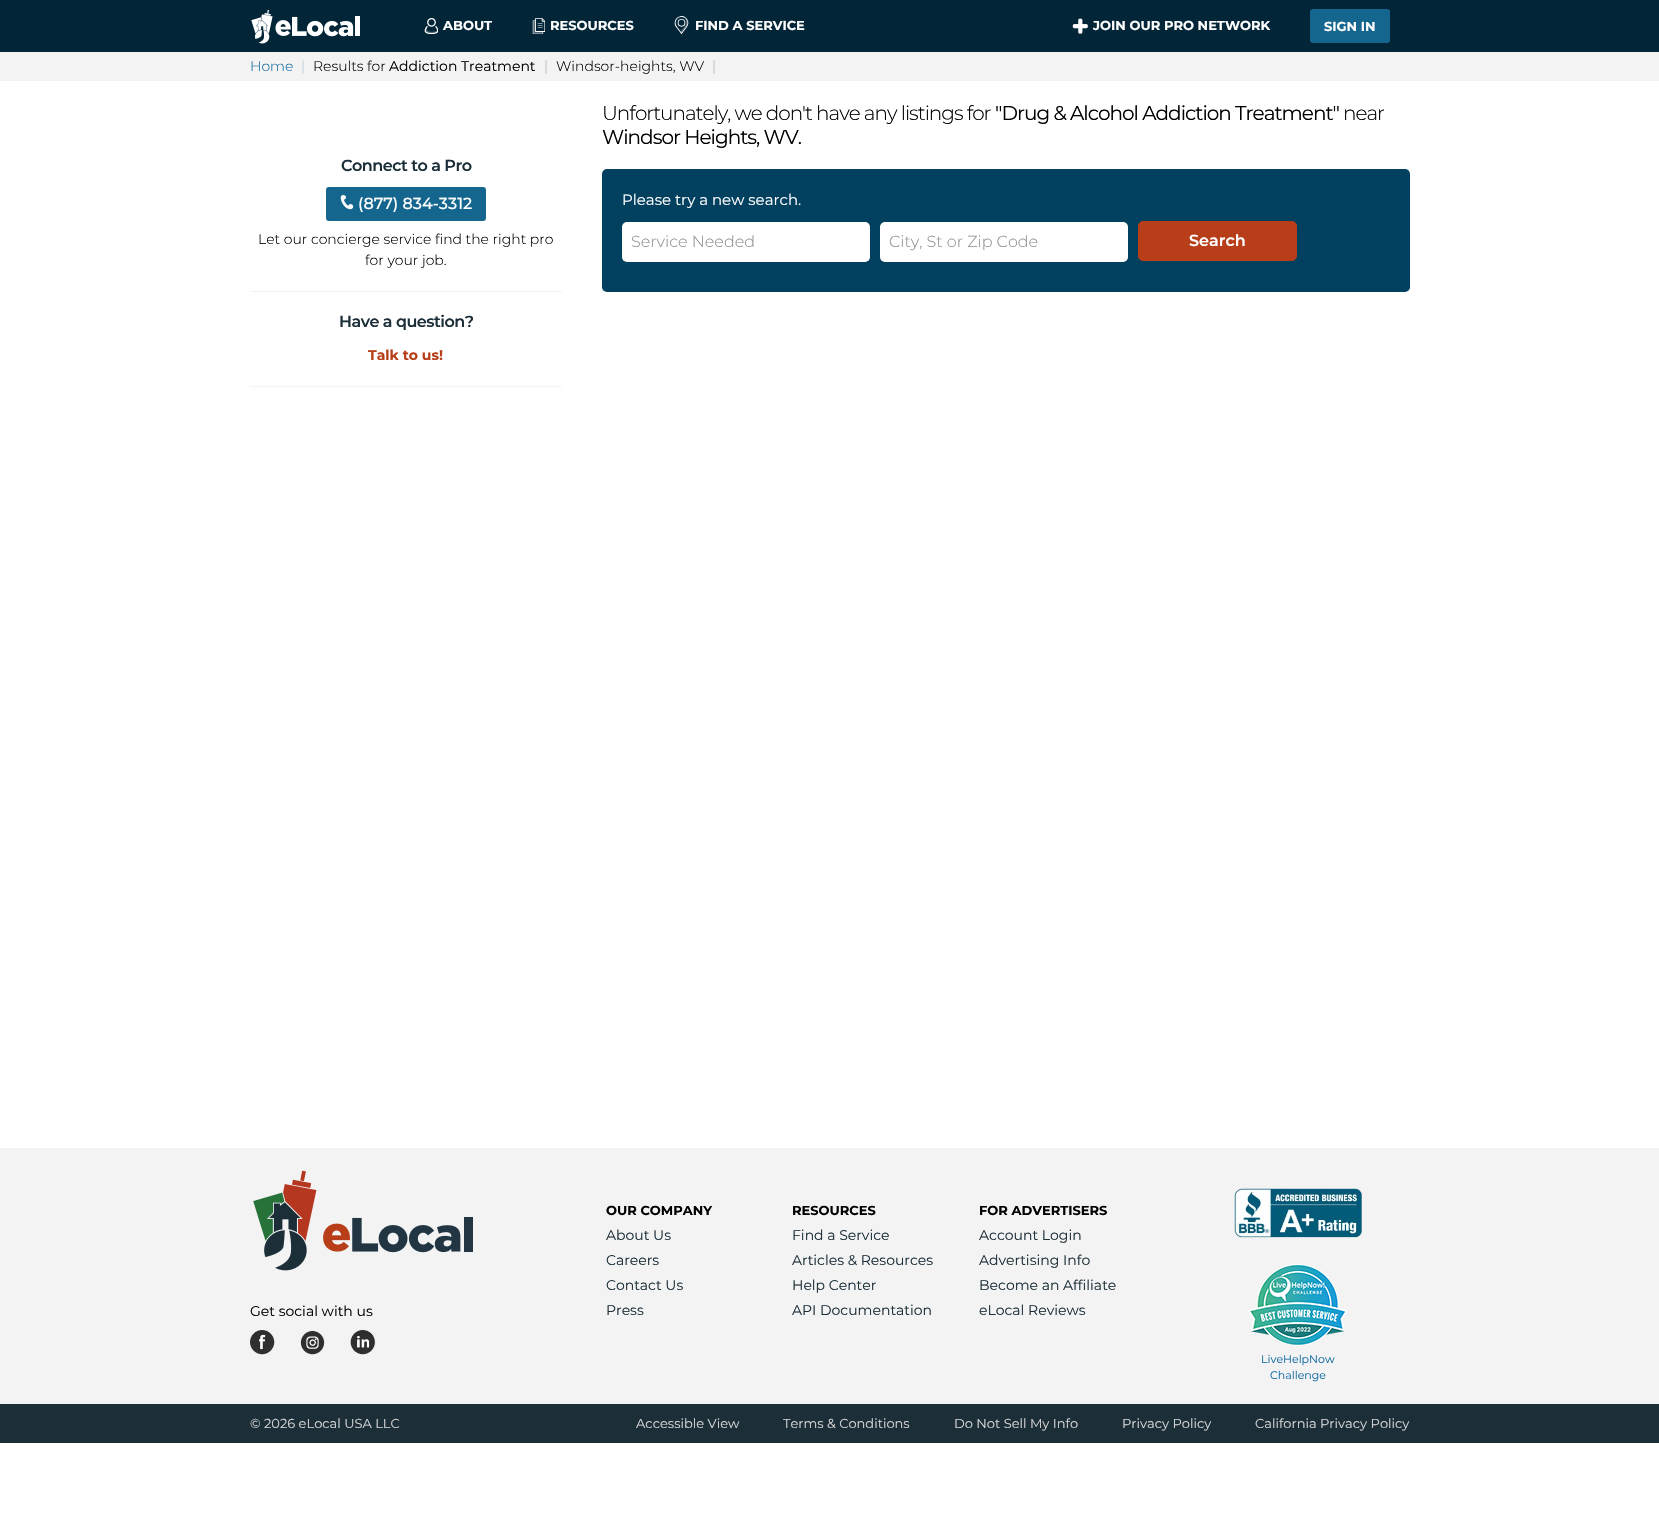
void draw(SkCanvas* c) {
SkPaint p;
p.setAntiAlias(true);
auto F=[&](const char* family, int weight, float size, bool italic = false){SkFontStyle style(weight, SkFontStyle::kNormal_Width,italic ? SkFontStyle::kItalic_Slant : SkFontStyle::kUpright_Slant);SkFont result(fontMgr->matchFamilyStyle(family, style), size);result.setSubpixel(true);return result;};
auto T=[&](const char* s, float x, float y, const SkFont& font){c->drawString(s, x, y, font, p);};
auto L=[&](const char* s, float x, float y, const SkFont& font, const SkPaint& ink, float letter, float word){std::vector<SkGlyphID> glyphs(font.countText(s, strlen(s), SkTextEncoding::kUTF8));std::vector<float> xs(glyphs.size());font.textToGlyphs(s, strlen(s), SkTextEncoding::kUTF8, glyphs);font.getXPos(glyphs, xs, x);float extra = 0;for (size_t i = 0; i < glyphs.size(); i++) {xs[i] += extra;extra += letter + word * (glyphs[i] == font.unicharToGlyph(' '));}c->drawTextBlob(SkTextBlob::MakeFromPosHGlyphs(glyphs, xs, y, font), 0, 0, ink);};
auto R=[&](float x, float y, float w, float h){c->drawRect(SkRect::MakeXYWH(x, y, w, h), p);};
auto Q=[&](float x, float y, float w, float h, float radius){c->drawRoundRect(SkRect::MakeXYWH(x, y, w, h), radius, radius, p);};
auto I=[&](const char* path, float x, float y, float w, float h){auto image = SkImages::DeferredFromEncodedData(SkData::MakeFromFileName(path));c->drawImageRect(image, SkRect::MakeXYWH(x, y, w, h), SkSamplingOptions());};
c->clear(0xffffffff);
p.setColor(0xff022537);
R(0,0,1659,52);
I("1.png",251,10,22,34);
I("2.png",275,16,85,21);
I("3.png",424,18,14,16);
auto f1 = F("Montserrat",700,13);
p.setColor(0xffffffff);
T("ABOUT",443,30,f1);
I("4.png",532,18,13,16);
T("RESOURCES",550,30,f1);
I("5.png",674,16,15,18);
T("FIND A SERVICE",695,30,f1);
I("6.png",1072,18,16,16);
T("JOIN OUR PRO NETWORK",1093,30,f1);
p.setColor(0xff15668f);
Q(1310,9,80,34,3);
p.setColor(0xffffffff);
T("SIGN IN",1324,31,f1);
p.setColor(0xfff3f3f3);
R(0,52,1659,29);
auto f2 = F("Montserrat",300,14);
p.setColor(0xff106ba3);
T("Home",250,71,f2);
p.setColor(0xffbad1df);
T("|",301,71,f2);
p.setColor(0xff000000);
T("Results for",313,71,f2);
auto f3 = F("Montserrat",400,14);
T("Addiction Treatment",389,71,f3);
p.setColor(0xffb6b6b6);
T("|",544,71,f2);
p.setColor(0xff000000);
T("Windsor-heights, WV",556,71,f2);
p.setColor(0xffb6b6b6);
T("|",712,71,f2);
p.setColor(0xfff3f3f3);
R(250,291,312,1);
auto f4 = F("Montserrat",600,16);
p.setColor(0xff1c2f39);
L("Connect to a Pro",341,171,f4,p,-.5,0);
p.setColor(0xff15668f);
Q(326,187,160,34,3);
I("7.png",340,195,14,15);
auto f5 = F("Montserrat",500,16);
p.setColor(0xffffffff);
T("(877) 834-3312",358,209,f5);
p.setColor(0xff000000);
T("Let our concierge service find the right pro",258,244,f2);
T("for your job.",365,265,f2);
p.setColor(0xfff3f3f3);
R(250,386,312,1);
p.setColor(0xff1c2f39);
L("Have a question?",339,327,f4,p,-.5,0);
auto f6 = F("Montserrat",700,14);
p.setColor(0xffb73e18);
T("Talk to us!",368,360,f6);
auto f7 = F("Montserrat",300,20);
p.setColor(0xff000000);
L("Unfortunately, we don't have any listings for",602,120,f7,p,-1,0);
auto f8 = F("Montserrat",400,20);
L("\"Drug & Alcohol Addiction Treatment\"",995,120,f8,p,-1,0);
L("near",1343,120,f7,p,-1,0);
L("Windsor Heights, WV.",602,144,f8,p,-1,0);
p.setColor(0xff02405f);
Q(602,169,808,123,5);
auto f9 = F("Montserrat",400,15);
p.setColor(0xffffffff);
T("Please try a new search.",622,205,f9);
Q(622,222,248,40,5);
auto f10 = F("Montserrat",300,16);
p.setColor(0xff919191);
T("Service Needed",631,247,f10);
p.setColor(0xffffffff);
Q(880,222,248,40,5);
p.setColor(0xff919191);
T("City, St or Zip Code",889,247,f10);
p.setColor(0xffb73e18);
c->drawRoundRect(SkRect::MakeXYWH(1138.5,221.5,158,39),4.5,4.5,p);
p.setStroke(true);
p.setStrokeWidth(1);
c->drawRoundRect(SkRect::MakeXYWH(1138.5,221.5,158,39),4.5,4.5,p);
p.setStroke(false);
p.setColor(0xffffffff);
T("Search",1189,246,f4);
p.setColor(0xfff3f3f3);
R(0,1148,1659,256);
I("8.png",253,1170,64,101);
I("9.png",323,1217,150,36);
p.setColor(0xff000000);
T("Get social with us",250,1316,f3);
I("10.png",250,1330,25,25);
I("11.png",300,1331,25,24);
I("12.png",350,1330,25,25);
T("OUR COMPANY",606,1215,f1);
p.setColor(0xff1c2f39);
T("About Us",606,1240,f3);
T("Careers",606,1265,f3);
T("Contact Us",606,1290,f3);
T("Press",606,1315,f3);
p.setColor(0xff000000);
T("RESOURCES",792,1215,f1);
p.setColor(0xff1c2f39);
T("Find a Service",792,1240,f3);
T("Articles & Resources",792,1265,f3);
T("Help Center",792,1290,f3);
T("API Documentation",792,1315,f3);
p.setColor(0xff000000);
T("FOR ADVERTISERS",979,1215,f1);
p.setColor(0xff1c2f39);
T("Account Login",979,1240,f3);
T("Advertising Info",979,1265,f3);
T("Become an Affiliate",979,1290,f3);
T("eLocal Reviews",979,1315,f3);
I("13.png",1234,1188,128,50);
I("14.png",1248,1264,100,82);
auto f11 = F("Montserrat",400,11);
p.setColor(0xff106ba3);
T("LiveHelpNow",1261,1363,f11);
T("Challenge",1270,1379,f11);
p.setColor(0xff1c2f39);
R(0,1404,1659,39);
auto f12 = F("Montserrat",400,13);
p.setColor(0xffd5d5d5);
T("© 2026 eLocal USA LLC",250,1428,f12);
T("Accessible View",636,1428,f12);
T("Terms & Conditions",783,1428,f12);
T("Do Not Sell My Info",954,1428,f12);
T("Privacy Policy",1122,1428,f12);
T("California Privacy Policy",1255,1428,f12);
}
